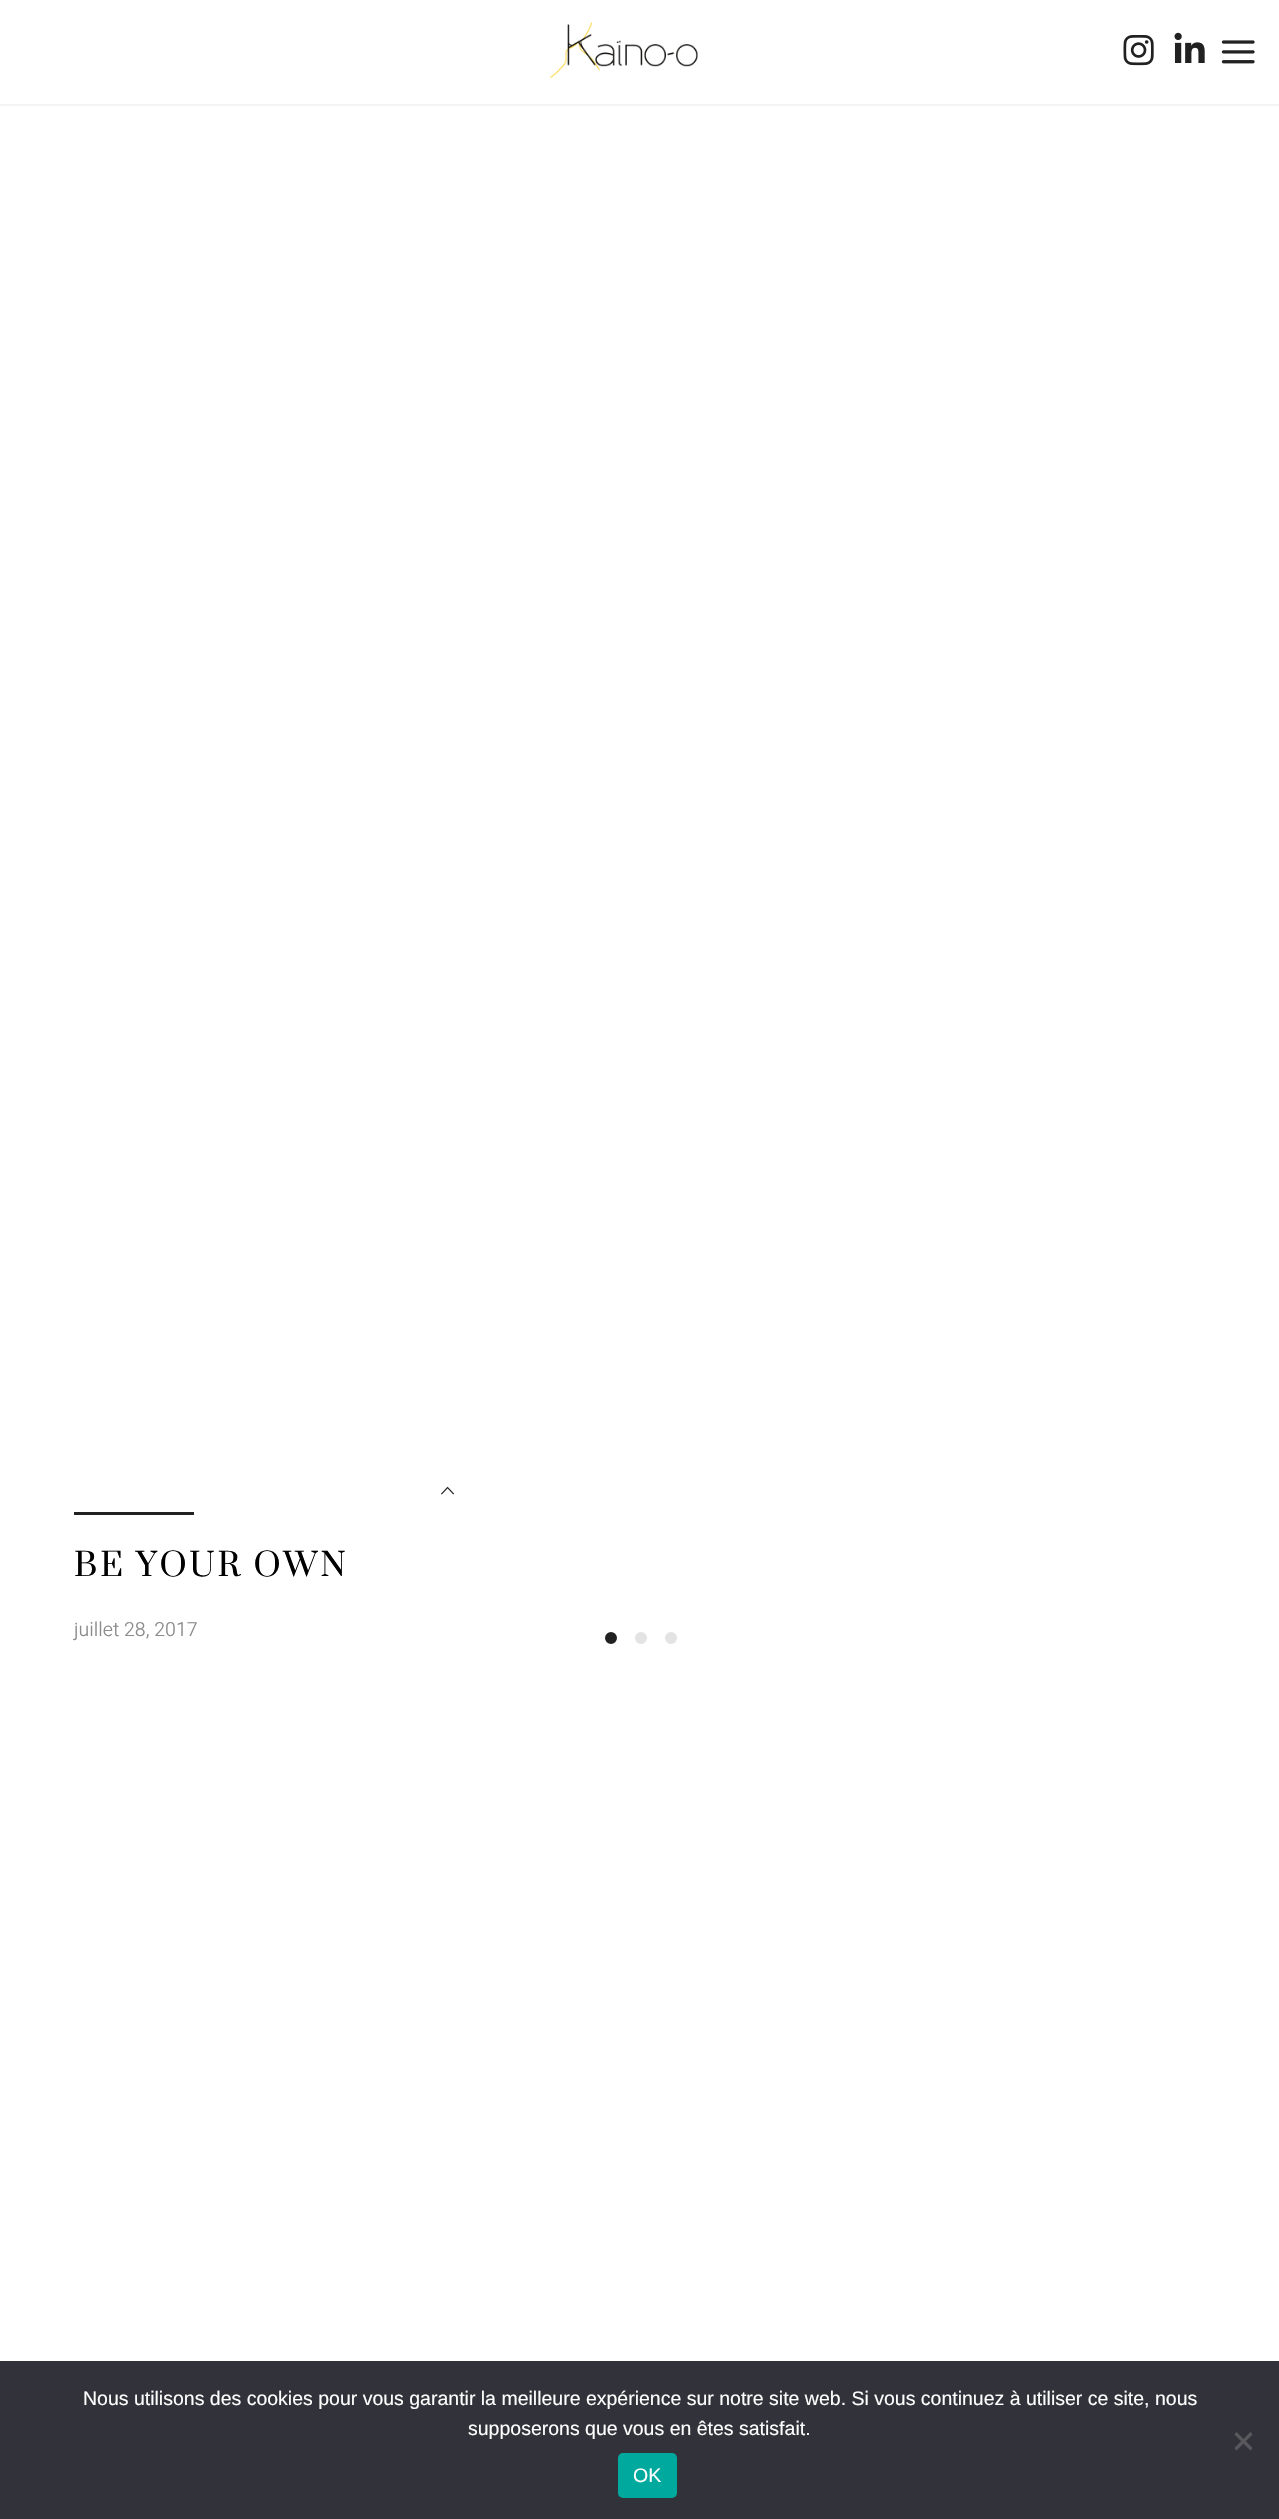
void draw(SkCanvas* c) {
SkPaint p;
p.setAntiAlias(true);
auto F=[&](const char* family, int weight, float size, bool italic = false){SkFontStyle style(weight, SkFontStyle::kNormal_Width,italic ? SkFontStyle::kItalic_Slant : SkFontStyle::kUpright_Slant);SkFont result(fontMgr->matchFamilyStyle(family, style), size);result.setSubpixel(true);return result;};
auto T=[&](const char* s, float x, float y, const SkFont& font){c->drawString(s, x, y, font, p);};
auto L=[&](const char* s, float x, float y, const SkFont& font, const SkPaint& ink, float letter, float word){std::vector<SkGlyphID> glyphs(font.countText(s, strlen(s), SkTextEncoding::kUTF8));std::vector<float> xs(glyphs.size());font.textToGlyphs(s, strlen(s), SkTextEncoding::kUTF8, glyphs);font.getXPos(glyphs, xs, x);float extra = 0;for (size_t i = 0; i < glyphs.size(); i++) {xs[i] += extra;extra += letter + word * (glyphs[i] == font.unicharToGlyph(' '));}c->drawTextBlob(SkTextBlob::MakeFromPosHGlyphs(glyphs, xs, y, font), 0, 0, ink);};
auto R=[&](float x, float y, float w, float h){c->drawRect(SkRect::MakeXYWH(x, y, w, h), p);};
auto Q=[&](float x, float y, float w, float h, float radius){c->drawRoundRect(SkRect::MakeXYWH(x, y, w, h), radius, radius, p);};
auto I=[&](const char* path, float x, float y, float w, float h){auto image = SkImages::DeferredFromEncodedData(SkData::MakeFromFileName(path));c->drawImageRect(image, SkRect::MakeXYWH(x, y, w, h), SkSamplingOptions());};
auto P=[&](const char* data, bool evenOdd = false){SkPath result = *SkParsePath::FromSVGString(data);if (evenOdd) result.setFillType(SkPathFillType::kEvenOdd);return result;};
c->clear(0xffffffff);
p.setColor(0xfff4f4f4);
R(0,104,1279,2);
I("1.png",550,22,148,57);
I("2.png",1123,35,31,31);
I("3.png",1174,32,31,31);
I("4.png",1221,40,34,24);
I("5.png",441,1486,13,9);
p.setColor(0xff212121);
R(74,1512,120,3);
auto f1 = F("Prata",400,31.5);
p.setColor(0xff000000);
L("BE YOUR OWN",74,1576,f1,p,2.75,0);
auto f2 = F("Heebo",300,19.5);
p.setColor(0xff8b8b8b);
T("juillet 28, 2017",74,1636,f2);
p.setColor(0xff212121);
c->drawCircle(611,1638,4.5,p);
p.setStroke(true);
p.setStrokeWidth(3);
c->drawCircle(611,1638,4.5,p);
p.setStroke(false);
p.setColor(0xffe3e3e3);
c->drawCircle(641,1638,4.5,p);
p.setStroke(true);
c->drawCircle(641,1638,4.5,p);
p.setStroke(false);
c->drawCircle(671,1638,4.5,p);
p.setStroke(true);
c->drawCircle(671,1638,4.5,p);
p.setStroke(false);
p.setColor(0xff32323a);
R(0,2361,1279,158);
auto f3 = F("Liberation Sans",400,19.5);
p.setColor(0xffffffff);
T("Nous utilisons des cookies pour vous garantir la meilleure expérience sur notre site web. Si vous continuez à utiliser ce site, nous",83,2405,f3);
T("supposerons que vous en êtes satisfait.",468,2435,f3);
p.setColor(0xff59595d);
c->drawPath(P("M1250.5 2432l2 2.5l-16 16l-2-2.5z"),p);
c->drawPath(P("M1234.5 2434.5l2-2.5l16 16l-2 2.5z"),p);
p.setColor(0xff00a99d);
Q(618,2453,59,45,5);
p.setColor(0xffffffff);
T("OK",633,2482,f3);
}
